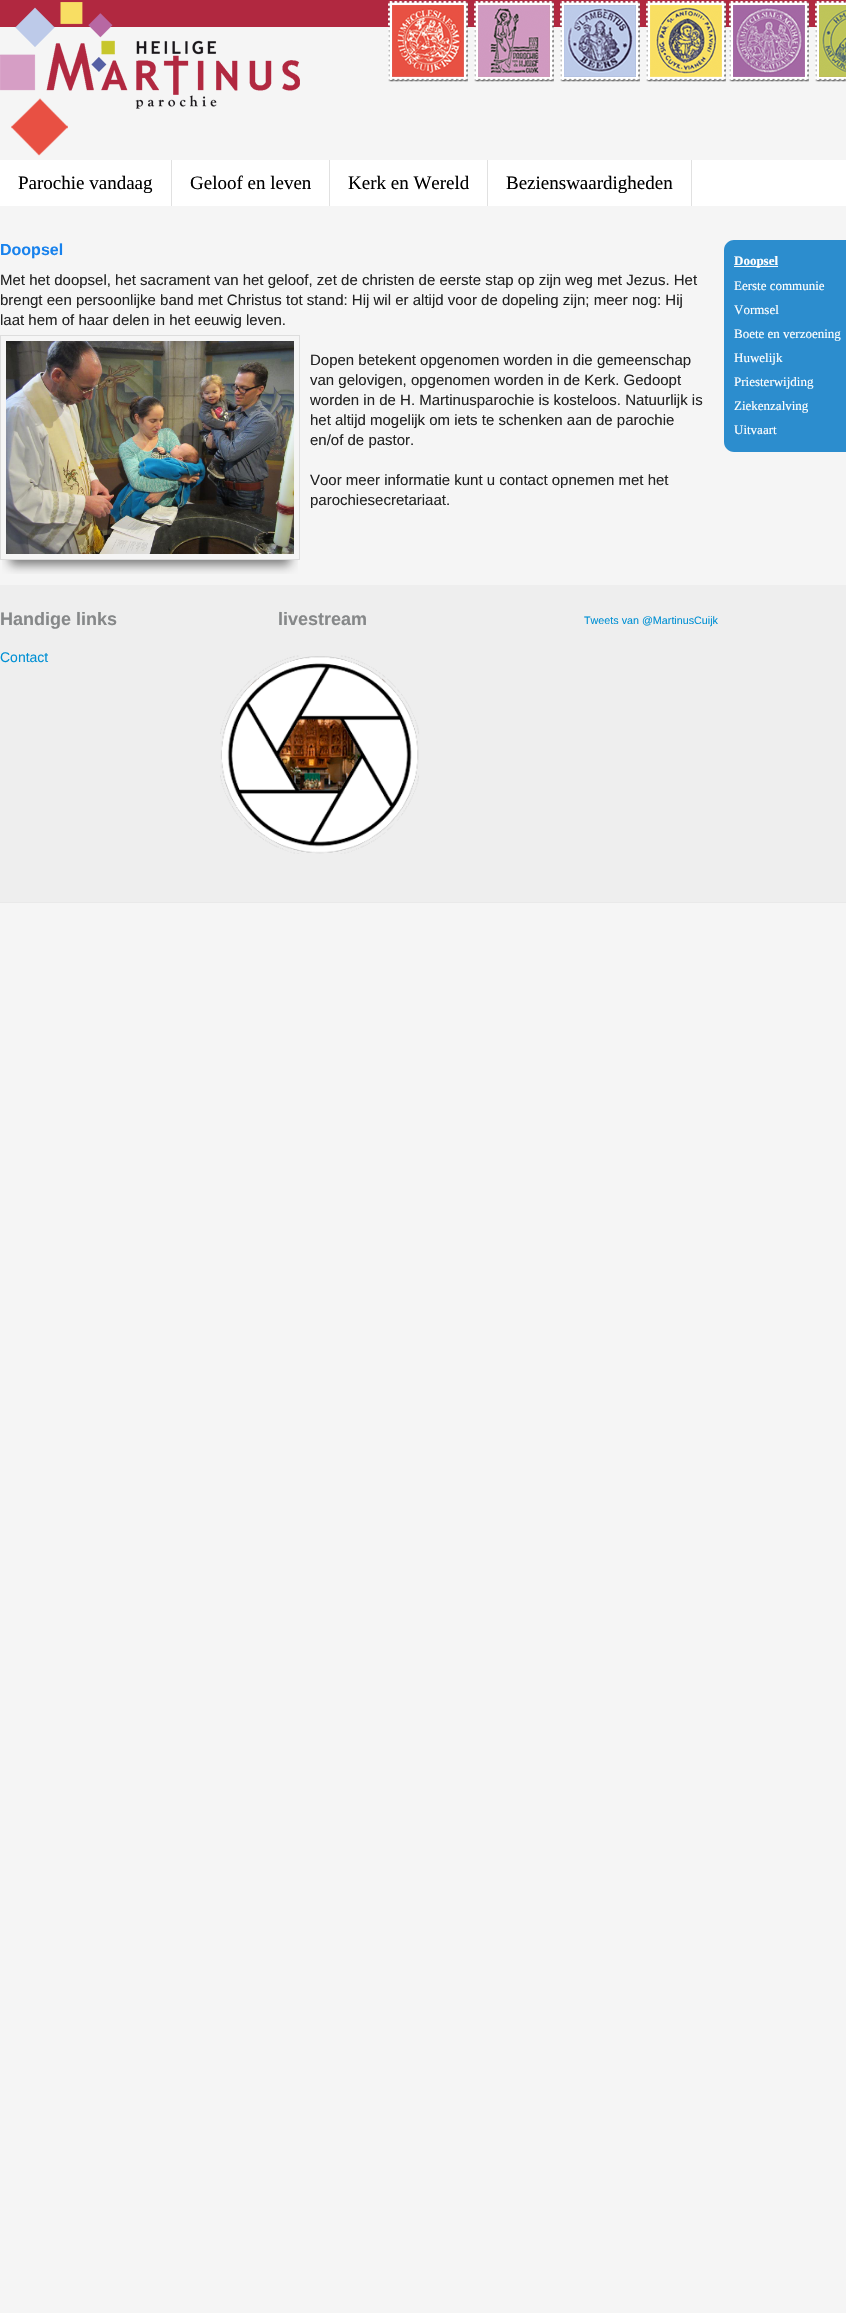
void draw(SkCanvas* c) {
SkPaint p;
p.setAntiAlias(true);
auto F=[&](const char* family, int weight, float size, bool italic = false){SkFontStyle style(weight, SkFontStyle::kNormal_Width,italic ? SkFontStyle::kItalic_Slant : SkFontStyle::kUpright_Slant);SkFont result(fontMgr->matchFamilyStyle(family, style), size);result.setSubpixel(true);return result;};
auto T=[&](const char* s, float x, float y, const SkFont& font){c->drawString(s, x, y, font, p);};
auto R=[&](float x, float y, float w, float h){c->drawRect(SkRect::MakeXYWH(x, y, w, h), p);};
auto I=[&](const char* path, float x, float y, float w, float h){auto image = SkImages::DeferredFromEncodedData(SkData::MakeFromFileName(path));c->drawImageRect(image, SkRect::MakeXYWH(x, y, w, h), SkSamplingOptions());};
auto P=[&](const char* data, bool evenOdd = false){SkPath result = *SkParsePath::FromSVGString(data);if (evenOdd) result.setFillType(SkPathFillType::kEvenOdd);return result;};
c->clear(0xfff5f5f5);
p.setColor(0xffb12840);
R(0,0,846,27);
I("1.png",0,2,300,154);
I("2.png",388,1,80,81);
I("3.png",474,1,80,81);
I("4.png",560,1,80,81);
I("5.png",646,1,80,81);
I("6.png",729,1,80,81);
I("7.png",815,1,31,81);
p.setColor(0xffffffff);
R(0,160,846,46);
p.setColor(0xffe1e1e1);
R(171,160,1,46);
auto f1 = F("Liberation Serif",400,19);
p.setColor(0xff000000);
T("Parochie vandaag",18,189,f1);
p.setColor(0xffe1e1e1);
R(329,160,1,46);
p.setColor(0xff000000);
T("Geloof en leven",190,189,f1);
p.setColor(0xffe1e1e1);
R(487,160,1,46);
p.setColor(0xff000000);
T("Kerk en Wereld",348,189,f1);
p.setColor(0xffe1e1e1);
R(691,160,1,46);
p.setColor(0xff000000);
T("Bezienswaardigheden",506,189,f1);
auto f2 = F("Liberation Sans",700,16);
p.setColor(0xff1882ed);
T("Doopsel",0,255,f2);
auto f3 = F("Liberation Sans",400,15);
p.setColor(0xff242424);
T("Met het doopsel, het sacrament van het geloof, zet de christen de eerste stap op zijn weg met Jezus. Het",0,285,f3);
T("brengt een persoonlijke band met Christus tot stand: Hij wil er altijd voor de dopeling zijn; meer nog: Hij",0,305,f3);
T("laat hem of haar delen in het eeuwig leven.",0,325,f3);
c->save();
c->clipRect(SkRect::MakeXYWH(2,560,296,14));
p.setColor(0x80000000);
p.setMaskFilter(SkMaskFilter::MakeBlur(kNormal_SkBlurStyle, 5));
c->drawRect(SkRect::MakeXYWH(10,360,280,205),p);
p.setMaskFilter(nullptr);
c->restore();
p.setStroke(true);
p.setStrokeWidth(1);
p.setColor(0xffdddddd);
c->drawRect(SkRect::MakeXYWH(.5,335.5,299,224),p);
I("8.png",6,341,288,213);
p.setStroke(false);
p.setColor(0xff242424);
T("Dopen betekent opgenomen worden in die gemeenschap",310,365,f3);
T("van gelovigen, opgenomen worden in de Kerk. Gedoopt",310,385,f3);
T("worden in de H. Martinusparochie is kosteloos. Natuurlijk is",310,405,f3);
T("het altijd mogelijk om iets te schenken aan de parochie",310,425,f3);
T("en/of de pastor.",310,445,f3);
T("Voor meer informatie kunt u contact opnemen met het",310,485,f3);
T("parochiesecretariaat.",310,505,f3);
p.setColor(0xff2c8dce);
c->drawPath(P("M734 240h112v212h-112c-5.5 0-10-4.5-10-10v-192c0-5.5 4.5-10 10-10z"),p);
p.setColor(0xffffffff);
R(734,266,44,1);
auto f4 = F("Liberation Serif",700,13);
T("Doopsel",734,265,f4);
auto f5 = F("Liberation Serif",400,13);
T("Eerste communie",734,290,f5);
T("Vormsel",734,314,f5);
T("Boete en verzoening",734,338,f5);
T("Huwelijk",734,362,f5);
T("Priesterwijding",734,386,f5);
T("Ziekenzalving",734,410,f5);
T("Uitvaart",734,434,f5);
p.setColor(0xffeeeeee);
R(0,585,846,317);
auto f6 = F("Liberation Sans",700,18);
p.setColor(0xff868889);
T("Handige links",0,625,f6);
auto f7 = F("Liberation Sans",400,14);
p.setColor(0xff0090d4);
T("Contact",0,662,f7);
p.setColor(0xff868889);
T("livestream",278,625,f6);
I("9.png",220,655,199,199);
auto f8 = F("Liberation Sans",400,10.75);
p.setColor(0xff0090d4);
T("Tweets van @MartinusCuijk",584,624,f8);
p.setColor(0xffe9e9e9);
R(0,902,846,1);
}
